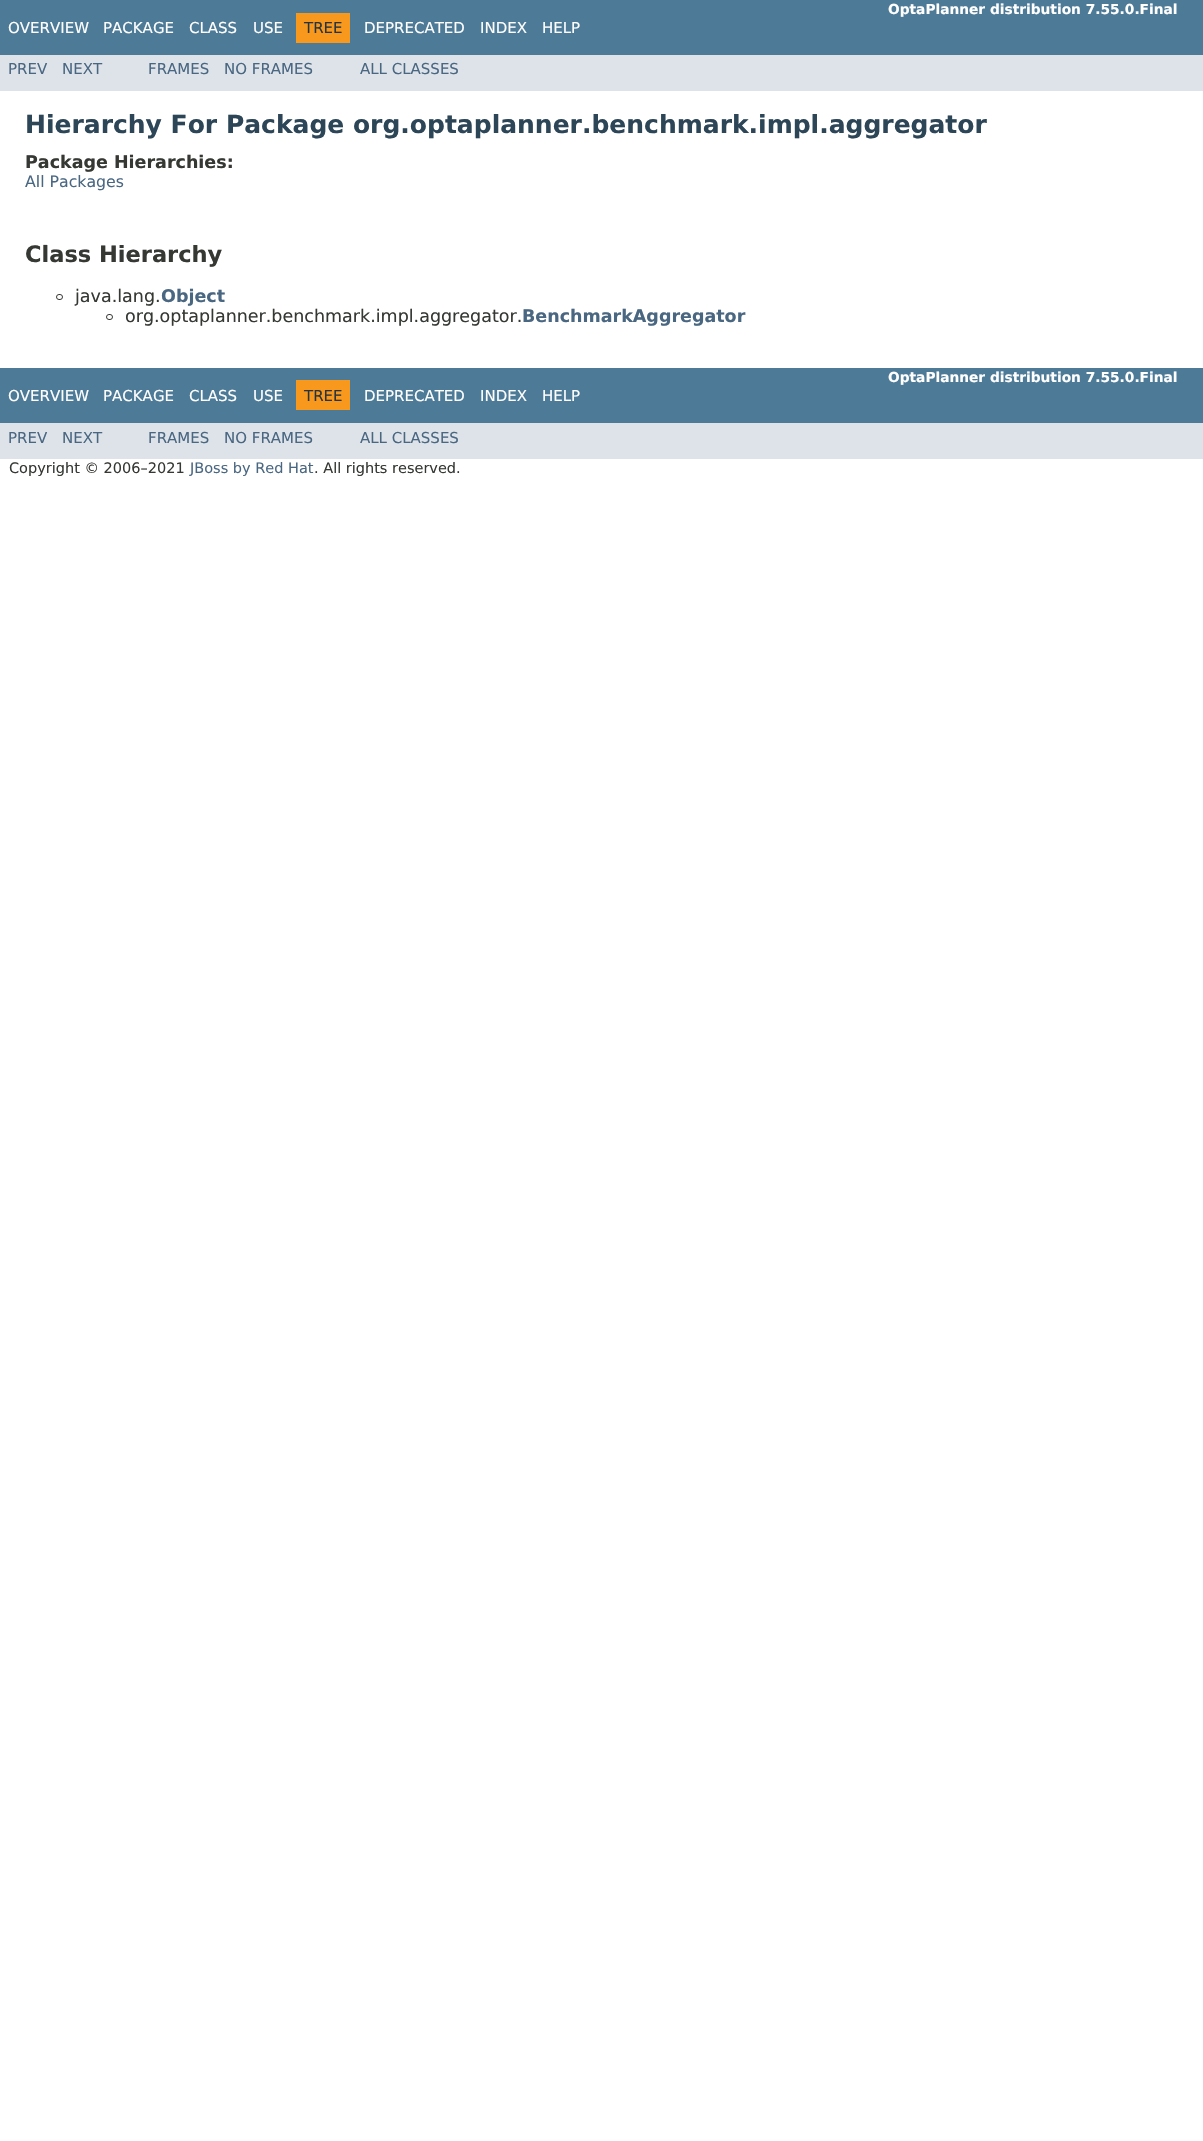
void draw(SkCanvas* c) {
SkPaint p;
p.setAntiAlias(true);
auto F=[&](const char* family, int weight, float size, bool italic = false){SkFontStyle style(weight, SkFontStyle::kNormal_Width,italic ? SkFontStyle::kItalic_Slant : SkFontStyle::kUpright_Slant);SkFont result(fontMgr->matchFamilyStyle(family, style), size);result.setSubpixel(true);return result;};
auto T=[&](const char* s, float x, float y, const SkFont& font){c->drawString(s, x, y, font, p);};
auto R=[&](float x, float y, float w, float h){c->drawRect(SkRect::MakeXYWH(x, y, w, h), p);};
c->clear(0xffffffff);
p.setColor(0xff4d7a97);
R(0,0,1203,55);
auto f1 = F("DejaVu Sans",700,13.75);
p.setColor(0xffffffff);
T("OptaPlanner distribution 7.55.0.Final",888,14,f1);
auto f2 = F("DejaVu Sans",400,15);
T("OVERVIEW",8,33,f2);
T("PACKAGE",103,33,f2);
T("CLASS",189,33,f2);
T("USE",253,33,f2);
p.setColor(0xfff8981d);
R(296,13,54,30);
p.setColor(0xff253441);
T("TREE",304,33,f2);
p.setColor(0xffffffff);
T("DEPRECATED",364,33,f2);
T("INDEX",480,33,f2);
T("HELP",542,33,f2);
p.setColor(0xffdee3e9);
R(0,55,1203,36);
p.setColor(0xff4a6782);
T("PREV",8,74,f2);
T("NEXT",62,74,f2);
T("FRAMES",148,74,f2);
T("NO FRAMES",224,74,f2);
T("ALL CLASSES",360,74,f2);
auto f3 = F("DejaVu Sans",700,25);
p.setColor(0xff2c4557);
T("Hierarchy For Package org.optaplanner.benchmark.impl.aggregator",25,133,f3);
auto f4 = F("DejaVu Sans",700,17.5);
p.setColor(0xff353833);
T("Package Hierarchies:",25,168,f4);
auto f5 = F("DejaVu Sans",400,15.75);
p.setColor(0xff4a6782);
T("All Packages",25,187,f5);
auto f6 = F("DejaVu Sans",700,22.5);
p.setColor(0xff353833);
T("Class Hierarchy",25,262,f6);
p.setStroke(true);
p.setStrokeWidth(1);
c->drawRoundRect(SkRect::MakeXYWH(56.5,294.5,6,5),2.5,2.5,p);
auto f7 = F("DejaVu Sans",400,17.5);
p.setStroke(false);
T("java.lang.",75,302,f7);
p.setColor(0xff4a6782);
T("Object",161,302,f4);
p.setStroke(true);
p.setColor(0xff353833);
c->drawRoundRect(SkRect::MakeXYWH(106.5,314.5,6,5),2.5,2.5,p);
p.setStroke(false);
T("org.optaplanner.benchmark.impl.aggregator.",125,322,f7);
p.setColor(0xff4a6782);
T("BenchmarkAggregator",522,322,f4);
p.setColor(0xff4d7a97);
R(0,368,1203,55);
p.setColor(0xffffffff);
T("OptaPlanner distribution 7.55.0.Final",888,382,f1);
T("OVERVIEW",8,401,f2);
T("PACKAGE",103,401,f2);
T("CLASS",189,401,f2);
T("USE",253,401,f2);
p.setColor(0xfff8981d);
R(296,380,54,30);
p.setColor(0xff253441);
T("TREE",304,401,f2);
p.setColor(0xffffffff);
T("DEPRECATED",364,401,f2);
T("INDEX",480,401,f2);
T("HELP",542,401,f2);
p.setColor(0xffdee3e9);
R(0,423,1203,36);
p.setColor(0xff4a6782);
T("PREV",8,443,f2);
T("NEXT",62,443,f2);
T("FRAMES",148,443,f2);
T("NO FRAMES",224,443,f2);
T("ALL CLASSES",360,443,f2);
auto f8 = F("DejaVu Sans",400,14.5);
p.setColor(0xff353833);
T("Copyright © 2006–2021",9,473,f8);
p.setColor(0xff4a6782);
T("JBoss by Red Hat",190,473,f8);
p.setColor(0xff353833);
T(". All rights reserved.",314,473,f8);
}
